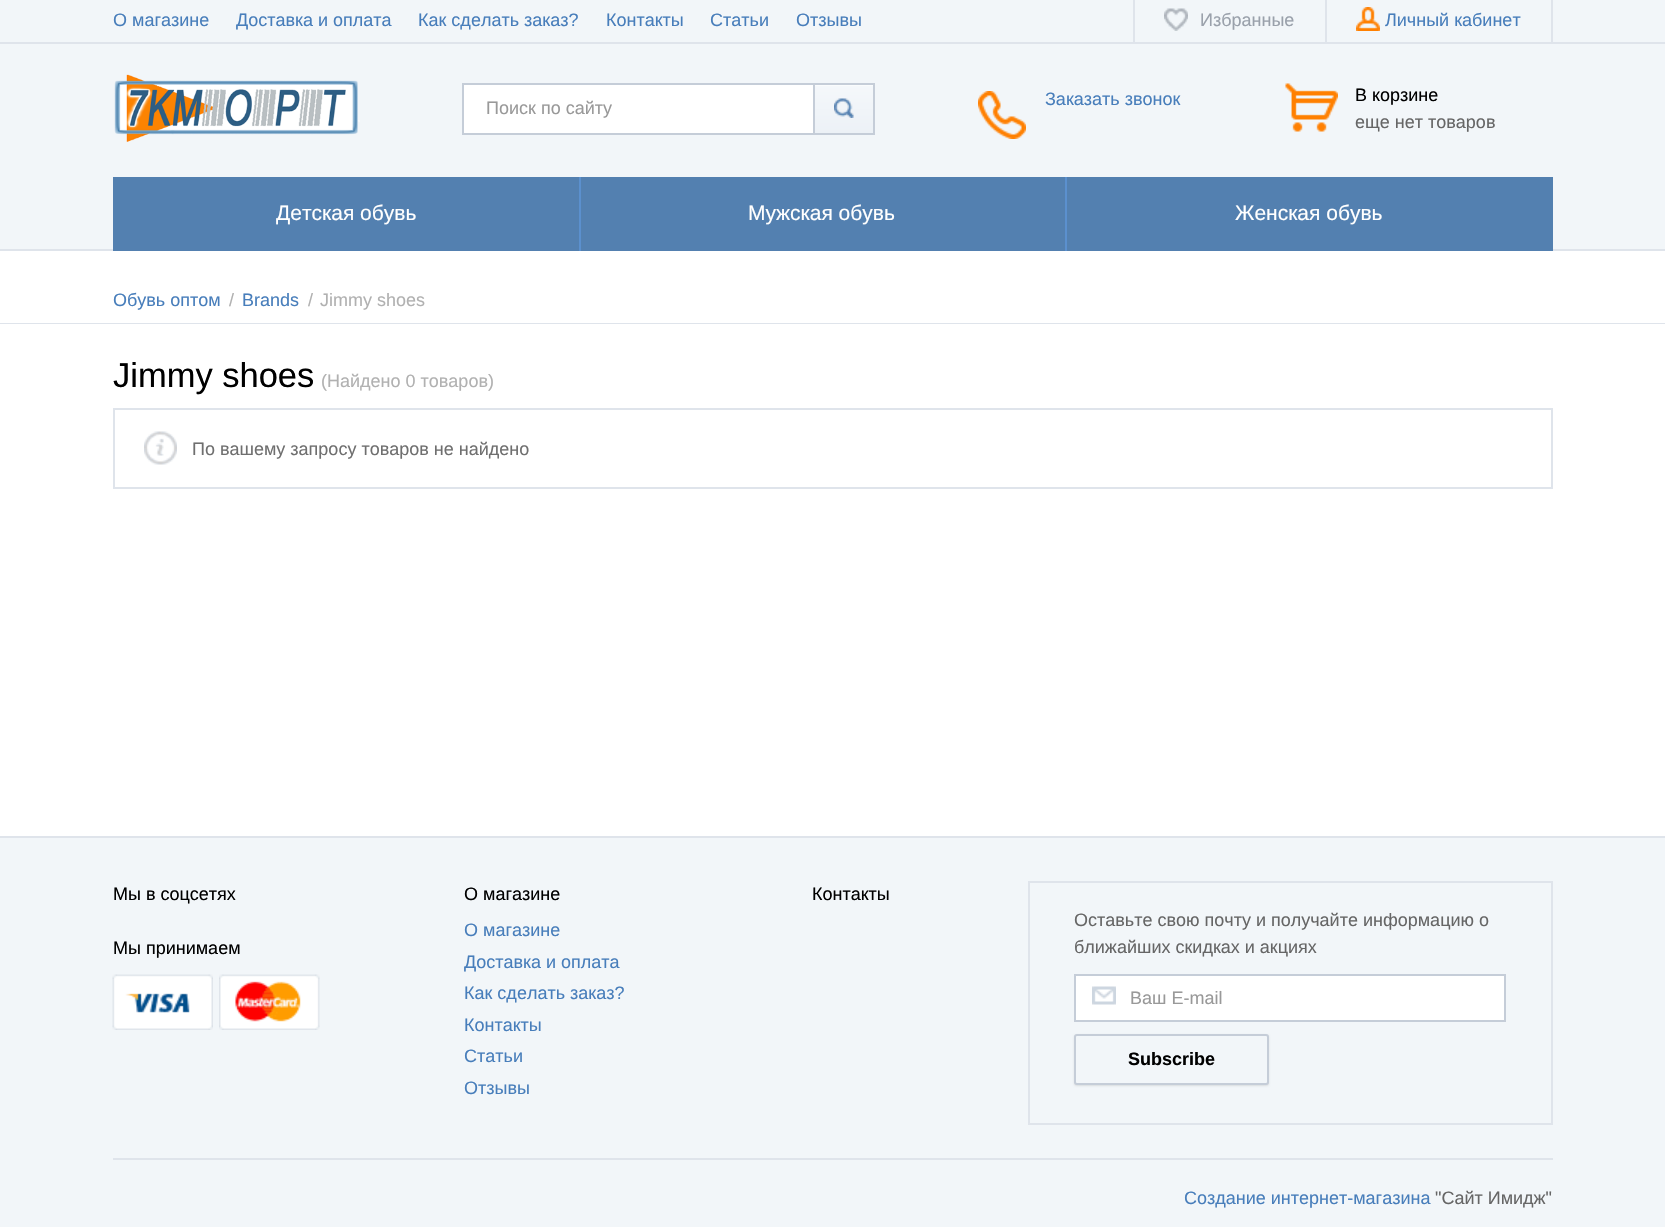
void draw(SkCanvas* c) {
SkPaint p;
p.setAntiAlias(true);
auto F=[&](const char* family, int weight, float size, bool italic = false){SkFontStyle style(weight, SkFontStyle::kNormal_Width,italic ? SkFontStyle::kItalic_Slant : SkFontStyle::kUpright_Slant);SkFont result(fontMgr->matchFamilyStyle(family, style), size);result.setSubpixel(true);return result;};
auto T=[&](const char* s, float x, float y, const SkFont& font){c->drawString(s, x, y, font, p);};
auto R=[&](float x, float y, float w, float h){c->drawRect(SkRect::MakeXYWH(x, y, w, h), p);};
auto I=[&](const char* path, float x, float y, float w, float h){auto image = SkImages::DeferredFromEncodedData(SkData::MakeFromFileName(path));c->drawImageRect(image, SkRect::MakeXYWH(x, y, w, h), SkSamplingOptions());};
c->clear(0xffffffff);
p.setColor(0xfff2f6f9);
R(0,0,1665,249);
p.setColor(0xffdfe4eb);
R(0,249,1665,2);
R(0,42,1665,2);
auto f1 = F("Liberation Sans",400,18);
p.setColor(0xff487ebb);
T("О магазине",113,26,f1);
T("Доставка и оплата",236,26,f1);
T("Как сделать заказ?",418,26,f1);
T("Контакты",606,26,f1);
T("Статьи",710,26,f1);
T("Отзывы",796,26,f1);
p.setColor(0xffdfe4eb);
R(1133,0,2,44);
R(1325,0,2,42);
I("1.png",1164,8,24,23);
p.setColor(0xff9aa1ab);
T("Избранные",1200,26,f1);
p.setColor(0xffdfe4eb);
R(1551,0,2,42);
I("2.png",1356,7,24,24);
p.setColor(0xff487ebb);
T("Личный кабинет",1385,26,f1);
I("3.png",114,74,246,68);
p.setColor(0xffffffff);
R(464,85,349,48);
p.setStroke(true);
p.setStrokeWidth(2);
p.setColor(0xffc5cdd8);
c->drawRect(SkRect::MakeXYWH(463,84,411,50),p);
p.setStroke(false);
p.setColor(0xff999999);
T("Поиск по сайту",486,114,f1);
{
const SkColor colors[] = {0xfff5f8fb,0xffecf1f6};
const float stops[] = {0,1};
const SkPoint ends[] = {{844,84}, {844,134}};
p.setShader(SkGradientShader::MakeLinear(ends, colors, stops, 2, SkTileMode::kClamp));
p.setAlpha(255);
}
R(815,86,58,47);
p.setShader(nullptr);
p.setColor(0xfffafcfd);
R(815,85,58,1);
p.setStroke(true);
p.setColor(0xffc5cdd8);
c->drawRect(SkRect::MakeXYWH(814,84,60,50),p);
I("4.png",834,98,20,20);
I("5.png",978,91,48,48);
p.setStroke(false);
p.setColor(0xff487ebb);
T("Заказать звонок",1045,105,f1);
I("6.png",1285,83,53,49);
p.setColor(0xff000000);
T("В корзине",1355,101,f1);
p.setColor(0xff666666);
T("еще нет товаров",1355,128,f1);
p.setColor(0xff5380b0);
R(113,177,1440,74);
auto f2 = F("Liberation Sans",400,21);
p.setColor(0xffffffff);
T("Детская обувь",276,220,f2);
p.setColor(0xff5b90ce);
R(579,177,2,74);
p.setColor(0xffffffff);
T("Мужская обувь",748,220,f2);
p.setColor(0xff5b90ce);
R(1065,177,2,74);
p.setColor(0xffffffff);
T("Женская обувь",1235,220,f2);
p.setColor(0xffdfe4eb);
R(0,323,1665,1);
p.setColor(0xff487ebb);
T("Обувь оптом",113,306,f1);
p.setColor(0xffb1b1b1);
T("/",229,306,f1);
p.setColor(0xff487ebb);
T("Brands",242,306,f1);
p.setColor(0xffb1b1b1);
T("/",308,306,f1);
T("Jimmy shoes",320,306,f1);
auto f3 = F("Liberation Sans",400,34.5);
p.setColor(0xff000000);
T("Jimmy shoes",113,387,f3);
p.setColor(0xffb1b1b1);
T("(Найдено 0 товаров)",321,387,f1);
p.setStroke(true);
p.setColor(0xffdfe4eb);
c->drawRect(SkRect::MakeXYWH(114,409,1438,79),p);
I("7.png",144,431,33,34);
p.setStroke(false);
p.setColor(0xff6f6f6f);
T("По вашему запросу товаров не найдено",192,455,f1);
p.setColor(0xfff2f6f9);
R(0,838,1665,389);
p.setColor(0xffdfe4eb);
R(0,836,1665,2);
p.setColor(0xff000000);
T("Мы в соцсетях",113,900,f1);
T("Мы принимаем",113,954,f1);
I("8.png",112,974,101,56);
I("9.png",219,974,101,56);
T("О магазине",464,900,f1);
p.setColor(0xff487ebb);
T("О магазине",464,936,f1);
T("Доставка и оплата",464,968,f1);
T("Как сделать заказ?",464,999,f1);
T("Контакты",464,1031,f1);
T("Статьи",464,1062,f1);
T("Отзывы",464,1094,f1);
p.setColor(0xff000000);
T("Контакты",812,900,f1);
p.setStroke(true);
p.setColor(0xffdfe4eb);
c->drawRect(SkRect::MakeXYWH(1029,882,523,242),p);
p.setStroke(false);
p.setColor(0xff666666);
T("Оставьте свою почту и получайте информацию о",1074,926,f1);
T("ближайших скидках и акциях",1074,953,f1);
p.setColor(0xffffffff);
c->drawRect(SkRect::MakeXYWH(1075,975,430,46),p);
p.setStroke(true);
p.setColor(0xffc5cdd8);
c->drawRect(SkRect::MakeXYWH(1075,975,430,46),p);
I("10.png",1092,986,24,19);
p.setStroke(false);
p.setColor(0xff999999);
T("Ваш E-mail",1130,1004,f1);
p.setColor(0x1a000000);
p.setMaskFilter(SkMaskFilter::MakeBlur(kNormal_SkBlurStyle, 1));
c->drawRoundRect(SkRect::MakeXYWH(1074,1035,195,51),3,3,p);
p.setMaskFilter(nullptr);
p.setColor(0xfff2f6f9);
c->drawRoundRect(SkRect::MakeXYWH(1075,1035,193,49),2,2,p);
p.setStroke(true);
p.setColor(0xffc5cdd8);
c->drawRoundRect(SkRect::MakeXYWH(1075,1035,193,49),2,2,p);
auto f4 = F("Liberation Sans",700,18);
p.setStroke(false);
p.setColor(0xff000000);
T("Subscribe",1128,1065,f4);
p.setColor(0xffdfe4eb);
R(113,1158,1440,2);
p.setColor(0xff487ebb);
T("Создание интернет-магазина",1184,1204,f1);
p.setColor(0xff666666);
T("\"Сайт Имидж\"",1435,1204,f1);
}
